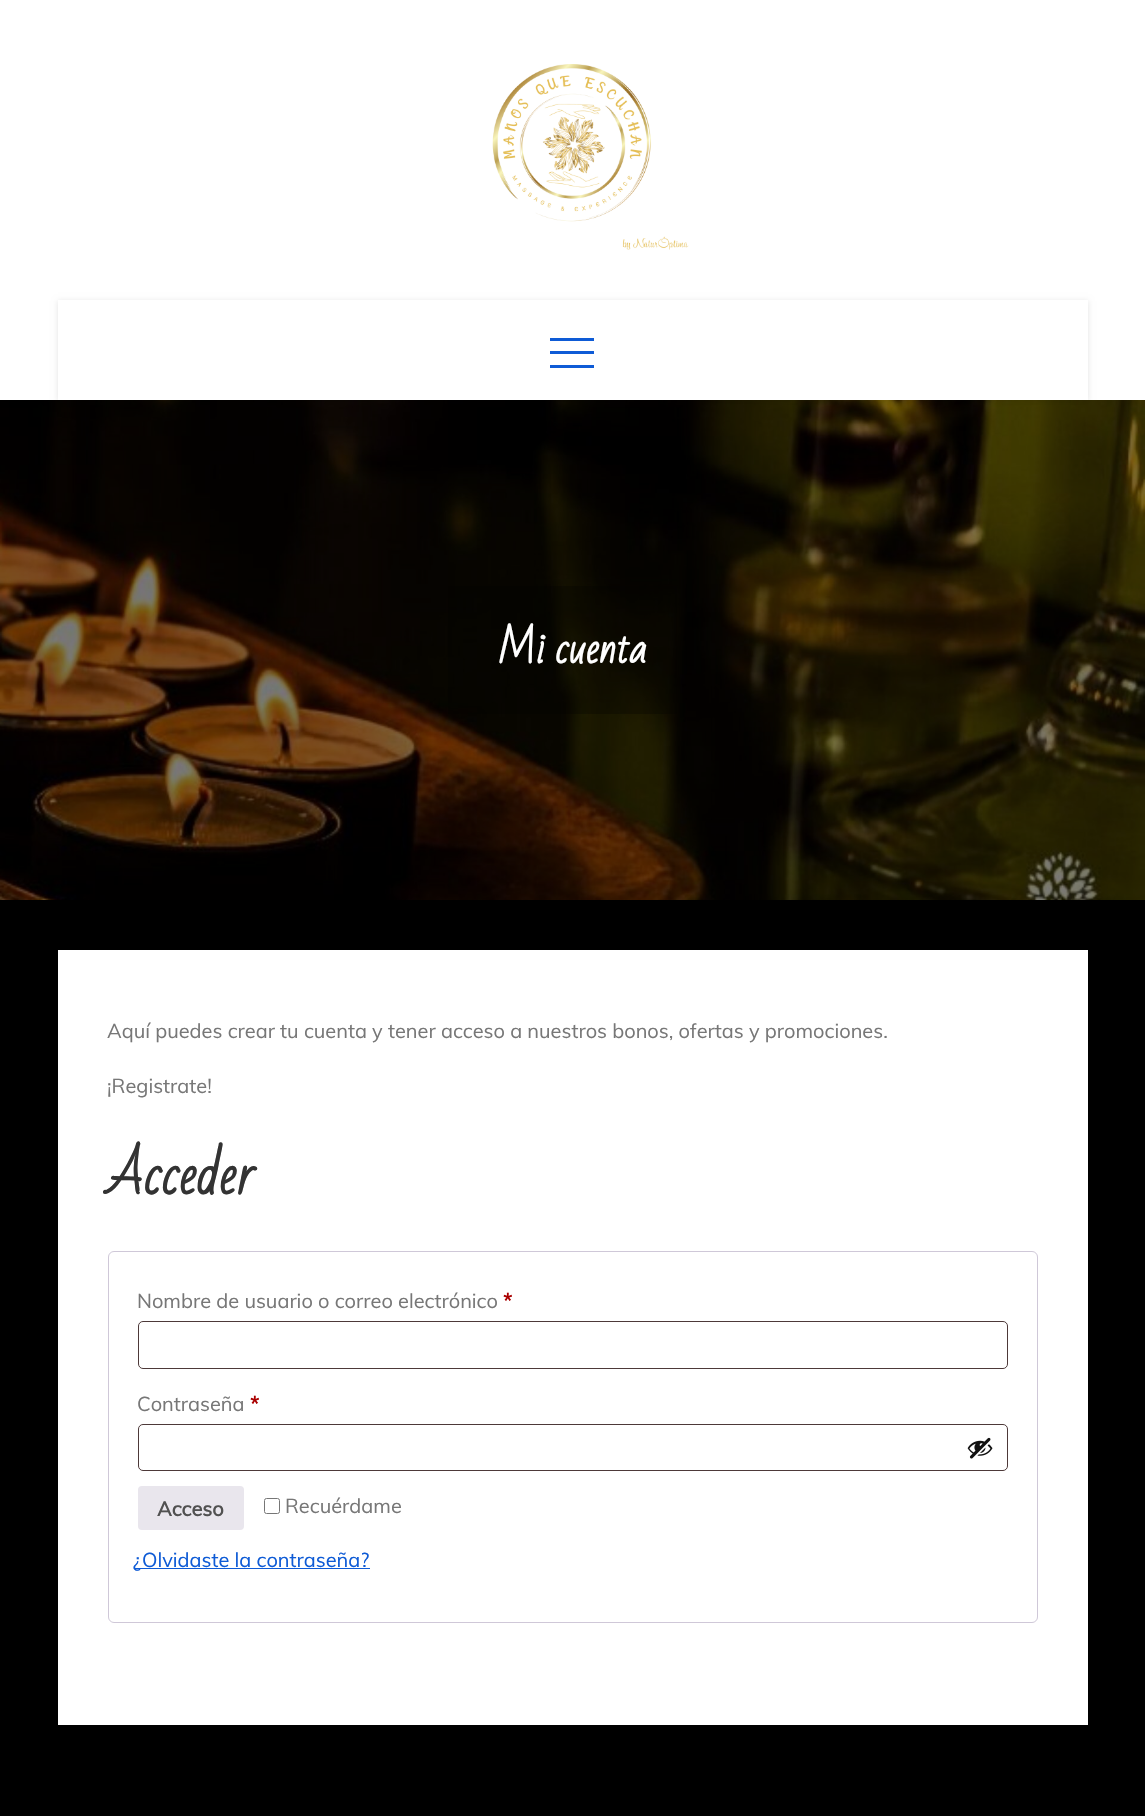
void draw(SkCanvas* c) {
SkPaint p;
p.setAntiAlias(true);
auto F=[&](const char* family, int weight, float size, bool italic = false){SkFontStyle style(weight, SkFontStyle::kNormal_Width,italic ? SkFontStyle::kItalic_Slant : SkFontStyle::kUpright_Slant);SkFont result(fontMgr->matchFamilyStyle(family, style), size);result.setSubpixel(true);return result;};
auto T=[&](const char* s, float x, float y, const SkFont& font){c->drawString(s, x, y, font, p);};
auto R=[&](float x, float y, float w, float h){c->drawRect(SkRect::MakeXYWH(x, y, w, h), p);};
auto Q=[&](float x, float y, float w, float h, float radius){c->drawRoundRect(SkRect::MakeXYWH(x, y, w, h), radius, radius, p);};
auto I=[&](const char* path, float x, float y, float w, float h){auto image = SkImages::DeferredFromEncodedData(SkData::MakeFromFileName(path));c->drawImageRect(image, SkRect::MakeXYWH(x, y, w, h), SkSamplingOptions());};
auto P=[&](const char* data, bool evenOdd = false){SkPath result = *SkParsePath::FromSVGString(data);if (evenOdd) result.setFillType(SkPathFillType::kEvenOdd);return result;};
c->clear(0xff000000);
p.setColor(0xffffffff);
R(0,0,1145,400);
I("1.png",492,64,197,186);
I("2.png",0,400,1145,500);
c->save();
c->clipPath(P("M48 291h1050v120h-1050zm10 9h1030v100h-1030z",true),true);
p.setColor(0x1c000000);
p.setMaskFilter(SkMaskFilter::MakeBlur(kNormal_SkBlurStyle, 3));
c->drawRect(SkRect::MakeXYWH(58,301,1030,100),p);
p.setMaskFilter(nullptr);
c->restore();
p.setColor(0xff0e5bd6);
R(550,338,44,3);
R(550,351,44,3);
R(550,365,44,3);
p.setColor(0x4d000000);
R(448,586,229,128);
auto f1 = F("Bad Script",700,40);
p.setColor(0xffffffff);
T("Mi cuenta",497,663,f1);
R(58,950,1030,775);
auto f2 = F("Muli",400,20);
p.setColor(0xff777777);
T("Aquí puedes crear tu cuenta y tener acceso a nuestros bonos, ofertas y promociones.",107,1038,f2);
T("¡Registrate!",107,1093,f2);
auto f3 = F("Bad Script",700,52.5);
p.setColor(0xff333333);
T("Acceder",107,1194,f3);
p.setStroke(true);
p.setStrokeWidth(1);
p.setColor(0xffcfc8d8);
c->drawRoundRect(SkRect::MakeXYWH(108.5,1251.5,929,371),5.5,5.5,p);
p.setStroke(false);
p.setColor(0xff777777);
T("Nombre de usuario o correo electrónico",137,1308,f2);
auto f4 = F("Muli",700,20);
p.setColor(0xffaa0000);
T("*",503,1308,f4);
p.setStroke(true);
p.setColor(0xff4d3939);
c->drawRoundRect(SkRect::MakeXYWH(138.5,1321.5,869,47),4.5,4.5,p);
p.setStroke(false);
p.setColor(0xff777777);
T("Contraseña",137,1411,f2);
p.setColor(0xffaa0000);
T("*",250,1411,f4);
p.setStroke(true);
p.setColor(0xff4d3939);
c->drawRoundRect(SkRect::MakeXYWH(138.5,1424.5,869,46),4.5,4.5,p);
I("3.png",967,1437,26,22);
p.setStroke(false);
p.setColor(0xffe9e6ed);
Q(138,1486,106,44,4);
p.setColor(0xff515151);
T("Acceso",157,1516,f4);
p.setStroke(true);
p.setColor(0xff767676);
c->drawRoundRect(SkRect::MakeXYWH(264.5,1498.5,15,15),2,2,p);
p.setStroke(false);
p.setColor(0xff777777);
T("Recuérdame",285,1513,f2);
p.setColor(0xff0e5bd6);
R(134,1568,236,1);
T("¿Olvidaste la contraseña?",133,1567,f2);
}
